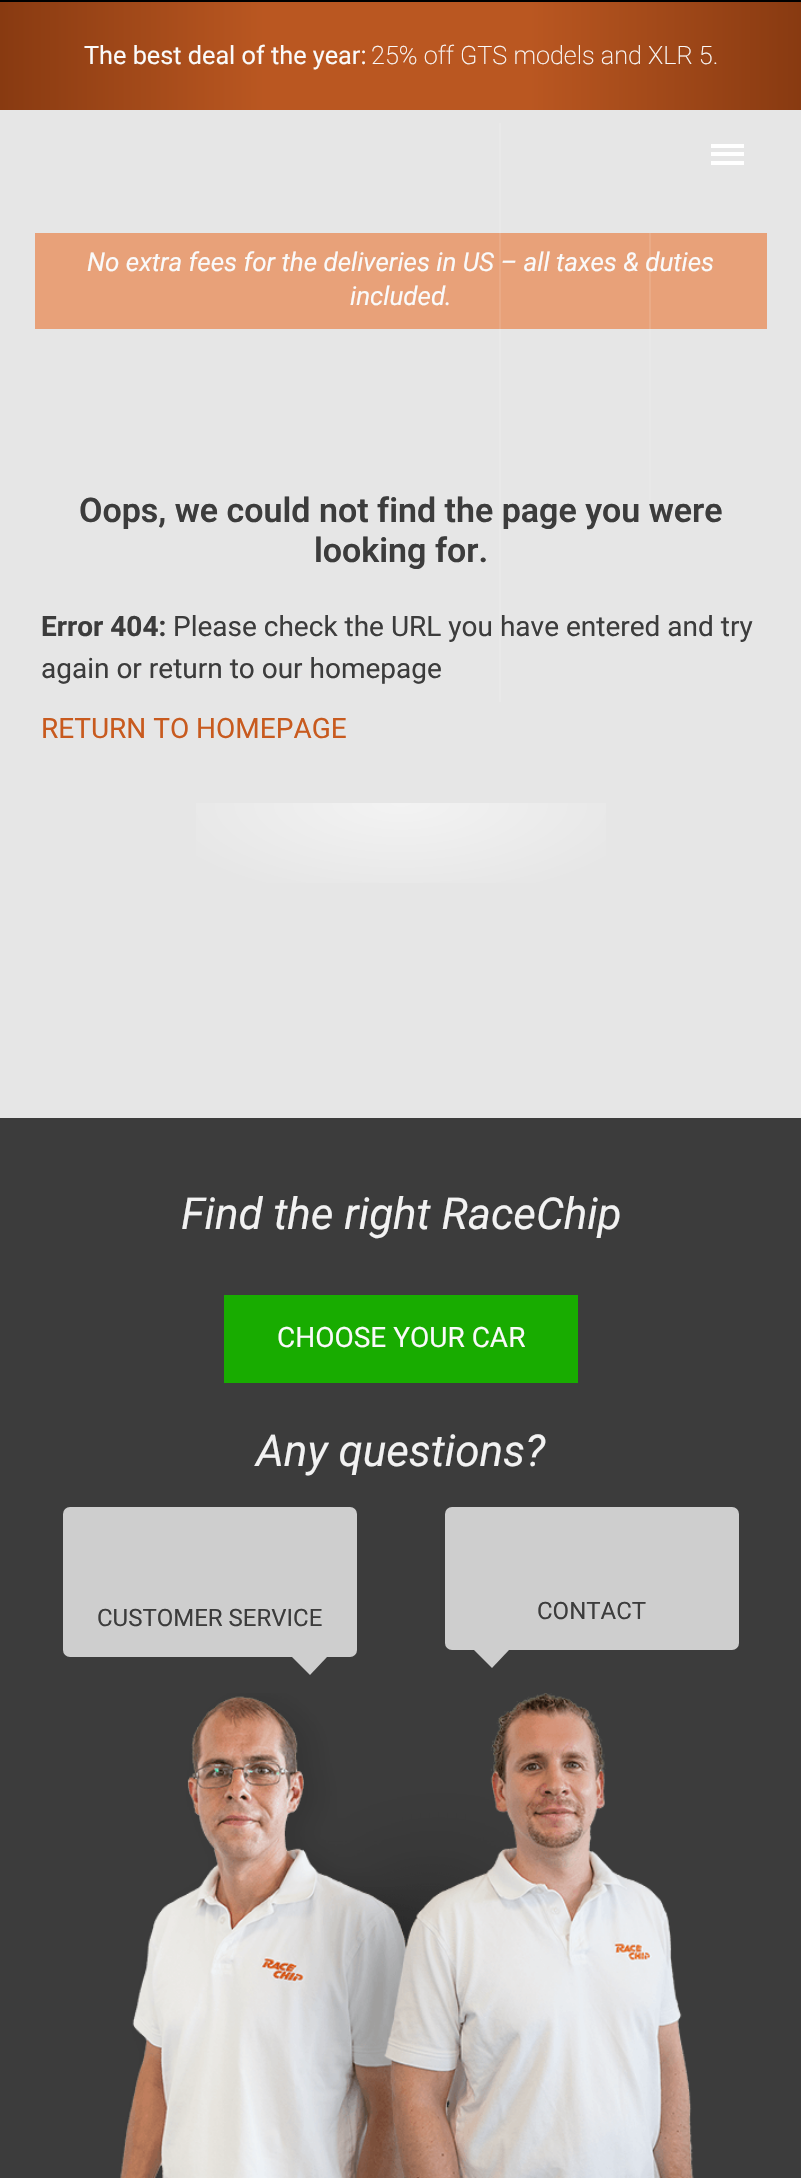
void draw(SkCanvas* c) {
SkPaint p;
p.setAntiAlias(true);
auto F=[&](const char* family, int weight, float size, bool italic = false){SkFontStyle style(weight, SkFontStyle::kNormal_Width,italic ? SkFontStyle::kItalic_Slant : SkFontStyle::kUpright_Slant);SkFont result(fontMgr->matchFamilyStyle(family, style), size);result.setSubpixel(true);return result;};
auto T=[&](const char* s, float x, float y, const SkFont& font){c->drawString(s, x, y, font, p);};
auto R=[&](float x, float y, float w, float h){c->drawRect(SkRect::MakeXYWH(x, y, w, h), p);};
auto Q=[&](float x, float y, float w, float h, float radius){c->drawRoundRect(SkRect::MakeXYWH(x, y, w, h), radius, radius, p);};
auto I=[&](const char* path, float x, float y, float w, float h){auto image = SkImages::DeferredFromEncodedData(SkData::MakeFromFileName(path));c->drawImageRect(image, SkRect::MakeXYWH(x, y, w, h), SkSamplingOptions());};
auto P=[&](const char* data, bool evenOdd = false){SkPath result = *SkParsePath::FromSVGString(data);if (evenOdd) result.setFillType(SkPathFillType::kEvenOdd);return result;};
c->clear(0xffe6e6e6);
p.setColor(0xffe9e9e9);
R(499,123,2,579);
{
const SkColor colors[] = {0xff883a11,0xffba5721,0xffba5721,0xff883a11};
const float stops[] = {0,.33,.66,1};
const SkPoint ends[] = {{0,56}, {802,56}};
p.setShader(SkGradientShader::MakeLinear(ends, colors, stops, 4, SkTileMode::kClamp));
p.setAlpha(255);
}
R(0,2,801,108);
p.setShader(nullptr);
p.setColor(0xff000000);
R(0,0,801,2);
auto f1 = F("Roboto",400,25.25);
p.setColor(0xfffafafa);
T("The best deal of the year:",84,64,f1);
auto f2 = F("Roboto",200,25.25);
T("25% off GTS models and XLR 5.",371,64,f2);
p.setColor(0xffffffff);
R(711,152,33,4);
R(711,144,33,4);
R(711,161,33,4);
p.setColor(0xffe8a179);
R(35,233,732,96);
p.setColor(0x1affffff);
R(649,233,2,280);
p.setColor(0xffeaaa86);
R(499,233,2,96);
auto f3 = F("Roboto",400,26,true);
p.setColor(0xfffafafa);
T("No extra fees for the deliveries in US – all taxes & duties",87,271,f3);
T("included.",350,305,f3);
auto f4 = F("Roboto",600,34);
p.setColor(0xff3c3c3c);
T("Oops, we could not find the page you were",79,522,f4);
T("looking for.",314,562,f4);
auto f5 = F("Roboto",700,28);
T("Error 404:",41,636,f5);
auto f6 = F("Roboto",400,28);
T("Please check the URL you have entered and try",173,636,f6);
T("again or return to our homepage",41,678,f6);
p.setColor(0xffc85a1e);
T("RETURN TO HOMEPAGE",41,738,f6);
{
const SkColor colors[] = {0xfff3f3f3,0xffe6e6e6,0xffe6e6e6};
const float stops[] = {0,.5,1};
SkMatrix m = SkMatrix::Translate(401,803).preScale(510,198);
p.setShader(SkGradientShader::MakeRadial({0, 0}, 1, colors, stops, 3, SkTileMode::kClamp, 0, &m));
p.setAlpha(255);
}
R(196,803,410,80);
p.setShader(nullptr);
p.setColor(0xff3c3c3c);
R(0,1118,801,1060);
auto f7 = F("Roboto",400,44,true);
p.setColor(0xfff2f2f2);
T("Find the right RaceChip",181,1229,f7);
p.setColor(0xff18ac00);
R(224,1295,354,88);
p.setColor(0xfffafafa);
T("CHOOSE YOUR CAR",277,1347,f6);
p.setColor(0xfff2f2f2);
T("Any questions?",256,1466,f7);
p.setColor(0xffcecece);
Q(63,1507,294,150,7);
c->drawPath(P("M292 1657h35l-17 18z"),p);
auto f8 = F("Roboto",400,24);
p.setColor(0xff3c3c3c);
T("CUSTOMER SERVICE",97,1626,f8);
p.setColor(0xffcecece);
Q(445,1507,294,143,7);
c->drawPath(P("M474 1650h35l-17 18z"),p);
p.setColor(0xff3c3c3c);
T("CONTACT",537,1619,f8);
I("1.png",120,1693,574,485);
}
